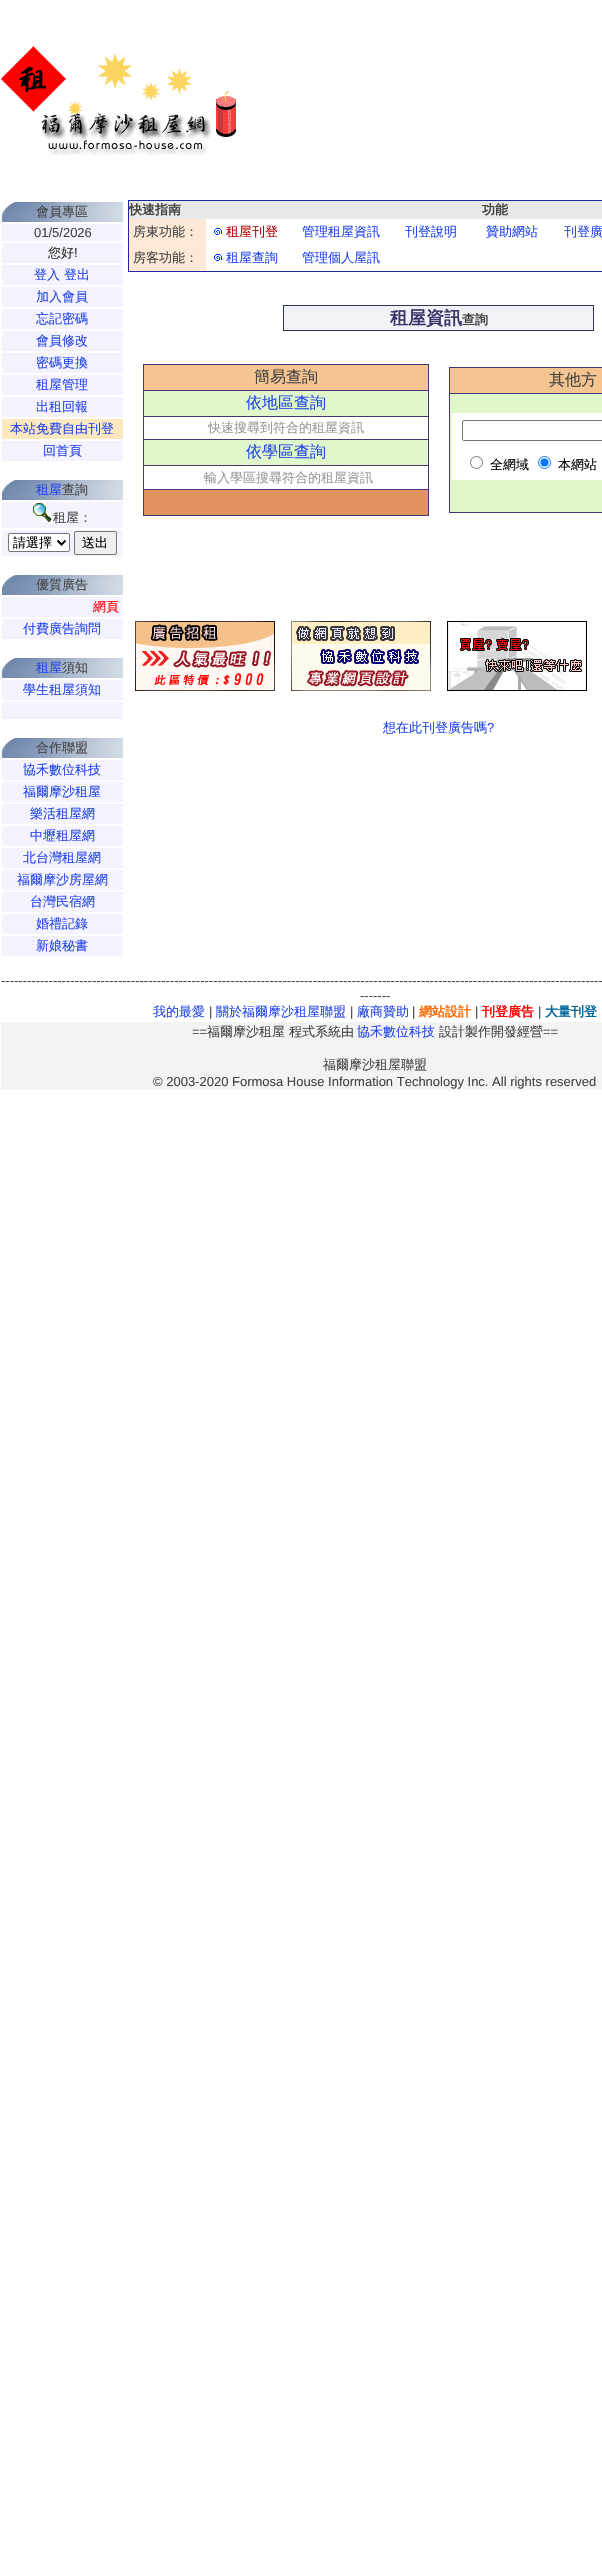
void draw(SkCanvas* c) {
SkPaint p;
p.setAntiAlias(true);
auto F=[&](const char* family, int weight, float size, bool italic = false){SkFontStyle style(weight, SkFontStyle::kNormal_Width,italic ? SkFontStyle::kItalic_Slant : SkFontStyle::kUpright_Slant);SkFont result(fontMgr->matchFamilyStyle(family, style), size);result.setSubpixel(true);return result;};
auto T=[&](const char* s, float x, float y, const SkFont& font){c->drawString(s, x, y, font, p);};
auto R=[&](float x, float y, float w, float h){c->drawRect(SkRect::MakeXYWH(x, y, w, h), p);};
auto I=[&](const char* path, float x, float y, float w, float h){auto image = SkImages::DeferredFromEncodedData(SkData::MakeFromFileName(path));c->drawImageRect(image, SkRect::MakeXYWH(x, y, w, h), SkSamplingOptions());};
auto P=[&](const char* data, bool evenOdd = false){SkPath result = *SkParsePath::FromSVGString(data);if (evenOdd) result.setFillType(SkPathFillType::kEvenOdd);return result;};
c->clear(0xffffffff);
I("1.png",1,46,235,109);
I("2.png",2,202,121,20);
auto f1 = F("WenQuanYi Zen Hei",500,13);
p.setColor(0xff434343);
T("會員專區",36,216,f1);
p.setColor(0xfff3f2fd);
R(2,224,121,17);
auto f2 = F("Liberation Sans",400,13);
p.setColor(0xff434343);
T("01/5/2026",34,237,f2);
p.setColor(0xfff3f2fd);
R(2,243,121,20);
p.setColor(0xff333333);
T("您好",48,257,f1);
T("!",74,257,f2);
p.setColor(0xfff3f2fd);
R(2,265,121,20);
p.setColor(0xff2244ee);
T("登入 登出",34,279,f1);
p.setColor(0xfff3f2fd);
R(2,287,121,20);
p.setColor(0xff2244ee);
T("加入會員",36,301,f1);
p.setColor(0xfff3f2fd);
R(2,309,121,20);
p.setColor(0xff2244ee);
T("忘記密碼",36,323,f1);
p.setColor(0xfff3f2fd);
R(2,331,121,20);
p.setColor(0xff2244ee);
T("會員修改",36,345,f1);
p.setColor(0xfff3f2fd);
R(2,353,121,20);
p.setColor(0xff2244ee);
T("密碼更換",36,367,f1);
p.setColor(0xfff3f2fd);
R(2,375,121,20);
p.setColor(0xff2244ee);
T("租屋管理",36,389,f1);
p.setColor(0xfff3f2fd);
R(2,397,121,20);
p.setColor(0xff2244ee);
T("出租回報",36,411,f1);
p.setColor(0xfffbe8bf);
R(2,419,121,20);
p.setColor(0xff2244ee);
T("本站免費自由刊登",10,433,f1);
p.setColor(0xfff3f2fd);
R(2,441,121,20);
p.setColor(0xff2244ee);
T("回首頁",43,455,f1);
I("2.png",2,480,121,20);
T("租屋",36,494,f1);
p.setColor(0xff434343);
T("查詢",62,494,f1);
p.setColor(0xfff3f2fd);
R(2,502,121,26);
I("3.png",33,503,20,19);
p.setColor(0xff434343);
T("租屋：",53,522,f1);
p.setColor(0xfff3f2fd);
R(2,530,121,26);
p.setColor(0xffffffff);
c->drawRoundRect(SkRect::MakeXYWH(8.5,533.5,61,18),1.5,1.5,p);
p.setStroke(true);
p.setStrokeWidth(1);
p.setColor(0xff767676);
c->drawRoundRect(SkRect::MakeXYWH(8.5,533.5,61,18),1.5,1.5,p);
p.setStrokeWidth(2);
p.setColor(0xff000000);
c->drawPath(P("M57.5 540.5l4 4l4-4"),p);
p.setStroke(false);
T("請選擇",13,547,f1);
p.setColor(0xffefefef);
c->drawRoundRect(SkRect::MakeXYWH(74.5,531.5,42,23),1.5,1.5,p);
p.setStroke(true);
p.setStrokeWidth(1);
p.setColor(0xff767676);
c->drawRoundRect(SkRect::MakeXYWH(74.5,531.5,42,23),1.5,1.5,p);
p.setStroke(false);
p.setColor(0xff000000);
T("送出",82,547,f1);
I("2.png",2,575,121,20);
p.setColor(0xff434343);
T("優質廣告",36,589,f1);
p.setColor(0xfff3f2fd);
R(2,597,121,20);
p.setColor(0xffff0000);
T("網頁",93,611,f1);
p.setColor(0xfff3f2fd);
R(2,619,121,20);
p.setColor(0xff2244ee);
T("付費廣告詢問",23,633,f1);
I("2.png",2,658,121,20);
T("租屋",36,672,f1);
p.setColor(0xff434343);
T("須知",62,672,f1);
p.setColor(0xfff3f2fd);
R(2,680,121,20);
p.setColor(0xff2244ee);
T("學生租屋須知",23,694,f1);
p.setColor(0xfff3f2fd);
R(2,702,121,17);
I("2.png",2,738,121,20);
p.setColor(0xff434343);
T("合作聯盟",36,752,f1);
p.setColor(0xfff3f2fd);
R(2,760,121,20);
p.setColor(0xff2244ee);
T("協禾數位科技",23,774,f1);
p.setColor(0xfff3f2fd);
R(2,782,121,20);
p.setColor(0xff2244ee);
T("福爾摩沙租屋",23,796,f1);
p.setColor(0xfff3f2fd);
R(2,804,121,20);
p.setColor(0xff2244ee);
T("樂活租屋網",30,818,f1);
p.setColor(0xfff3f2fd);
R(2,826,121,20);
p.setColor(0xff2244ee);
T("中壢租屋網",30,840,f1);
p.setColor(0xfff3f2fd);
R(2,848,121,20);
p.setColor(0xff2244ee);
T("北台灣租屋網",23,862,f1);
p.setColor(0xfff3f2fd);
R(2,870,121,20);
p.setColor(0xff2244ee);
T("福爾摩沙房屋網",17,884,f1);
p.setColor(0xfff3f2fd);
R(2,892,121,20);
p.setColor(0xff2244ee);
T("台灣民宿網",30,906,f1);
p.setColor(0xfff3f2fd);
R(2,914,121,20);
p.setColor(0xff2244ee);
T("婚禮記錄",36,928,f1);
p.setColor(0xfff3f2fd);
R(2,936,121,20);
p.setColor(0xff2244ee);
T("新娘秘書",36,950,f1);
p.setColor(0xff2124a3);
R(128,200,474,72);
p.setColor(0xffffffff);
R(206,219,396,52);
p.setColor(0xffe8e8e8);
R(129,201,473,18);
auto f3 = F("WenQuanYi Zen Hei",700,13);
p.setColor(0xff434343);
T("快速指南",129,214,f3);
T("功能",482,214,f3);
p.setColor(0xfffde9d5);
R(129,219,77,52);
p.setColor(0xff434343);
T("房東功能：",133,236,f1);
I("4.png",214,228,8,7);
p.setColor(0xffb50000);
T("租屋刊登",226,236,f1);
p.setColor(0xff2244ee);
T("管理租屋資訊",302,236,f1);
T("刊登說明",405,236,f1);
p.setColor(0xff434343);
T("房客功能：",133,262,f1);
I("4.png",214,254,8,7);
p.setColor(0xff2244ee);
T("租屋查詢",226,262,f1);
T("管理個人屋訊",302,262,f1);
T("贊助網站",486,236,f1);
T("刊登廣",564,236,f1);
p.setColor(0xff313657);
R(283,305,311,26);
p.setColor(0xfff1f2f5);
R(284,306,309,24);
auto f4 = F("WenQuanYi Zen Hei",700,18);
p.setColor(0xff36366b);
T("租屋資訊",390,324,f4);
p.setColor(0xff434343);
T("查詢",462,324,f3);
p.setColor(0xff473674);
R(143,364,286,152);
p.setColor(0xfff4c591);
R(144,365,284,25);
auto f5 = F("WenQuanYi Zen Hei",500,16);
p.setColor(0xff434343);
T("簡易查詢",254,382,f5);
p.setColor(0xffe0f7cc);
R(144,391,284,25);
p.setColor(0xff2244ee);
T("依地區查詢",246,408,f5);
p.setColor(0xffffffff);
R(144,417,284,22);
p.setColor(0xff999999);
T("快速搜尋到符合的租屋資訊",208,432,f1);
p.setColor(0xffe0f7cc);
R(144,440,284,25);
p.setColor(0xff2244ee);
T("依學區查詢",246,457,f5);
p.setColor(0xffffffff);
R(144,466,284,23);
p.setColor(0xff999999);
T("輸入學區搜尋符合的租屋資訊",204,482,f1);
p.setColor(0xffe39362);
R(144,490,284,25);
p.setColor(0xff473674);
R(449,367,153,146);
p.setColor(0xfff4c591);
R(450,368,152,25);
p.setColor(0xff434343);
T("其他方",549,385,f5);
p.setColor(0xffe0f7cc);
R(450,394,152,118);
p.setColor(0xffffffff);
R(452,413,150,67);
p.setStroke(true);
p.setColor(0xff767676);
c->drawRoundRect(SkRect::MakeXYWH(462.5,420.5,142,20),1.5,1.5,p);
c->drawCircle(476.5,462.5,6,p);
p.setStroke(false);
p.setColor(0xff000000);
T("全網域",490,469,f1);
p.setStroke(true);
p.setColor(0xff0075ff);
c->drawCircle(544.5,462.5,6,p);
p.setStroke(false);
c->drawCircle(544.5,462.5,4,p);
p.setColor(0xff000000);
T("本網站",558,469,f1);
I("5.png",135,621,140,70);
I("6.png",291,621,140,70);
I("7.png",447,621,140,70);
p.setColor(0xff2244ee);
T("想在此刊登廣告嗎",383,732,f1);
T("?",487,732,f2);
p.setColor(0xff434343);
T("-------------------------------------------------------------------------------------------------------------------------------------------",1,985,f2);
T("-------",360,1000,f2);
p.setColor(0xff2244ee);
T("我的最愛",153,1016,f1);
p.setColor(0xff434343);
T("|",209,1016,f2);
p.setColor(0xff2244ee);
T("關於福爾摩沙租屋聯盟",216,1016,f1);
p.setColor(0xff434343);
T("|",350,1016,f2);
p.setColor(0xff2244ee);
T("廠商贊助",357,1016,f1);
p.setColor(0xff434343);
T("|",412,1016,f2);
p.setColor(0xffff6600);
T("網站設計",419,1016,f3);
p.setColor(0xff434343);
T("|",475,1016,f2);
p.setColor(0xffff0000);
T("刊登廣告",482,1016,f3);
p.setColor(0xff434343);
T("|",538,1016,f2);
p.setColor(0xff006699);
T("大量刊登",545,1016,f3);
p.setColor(0xfff3f3f3);
R(1,1022,601,68);
p.setColor(0xff434343);
T("==",192,1036,f2);
T("福爾摩沙租屋 程式系統由",207,1036,f1);
p.setColor(0xff2244ee);
T("協禾數位科技",357,1036,f1);
p.setColor(0xff434343);
T("設計製作開發經營",439,1036,f1);
T("==",543,1036,f2);
T("福爾摩沙租屋聯盟",323,1069,f1);
T("© 2003-2020 Formosa House Information Technology Inc. All rights reserved",153,1086,f2);
}
